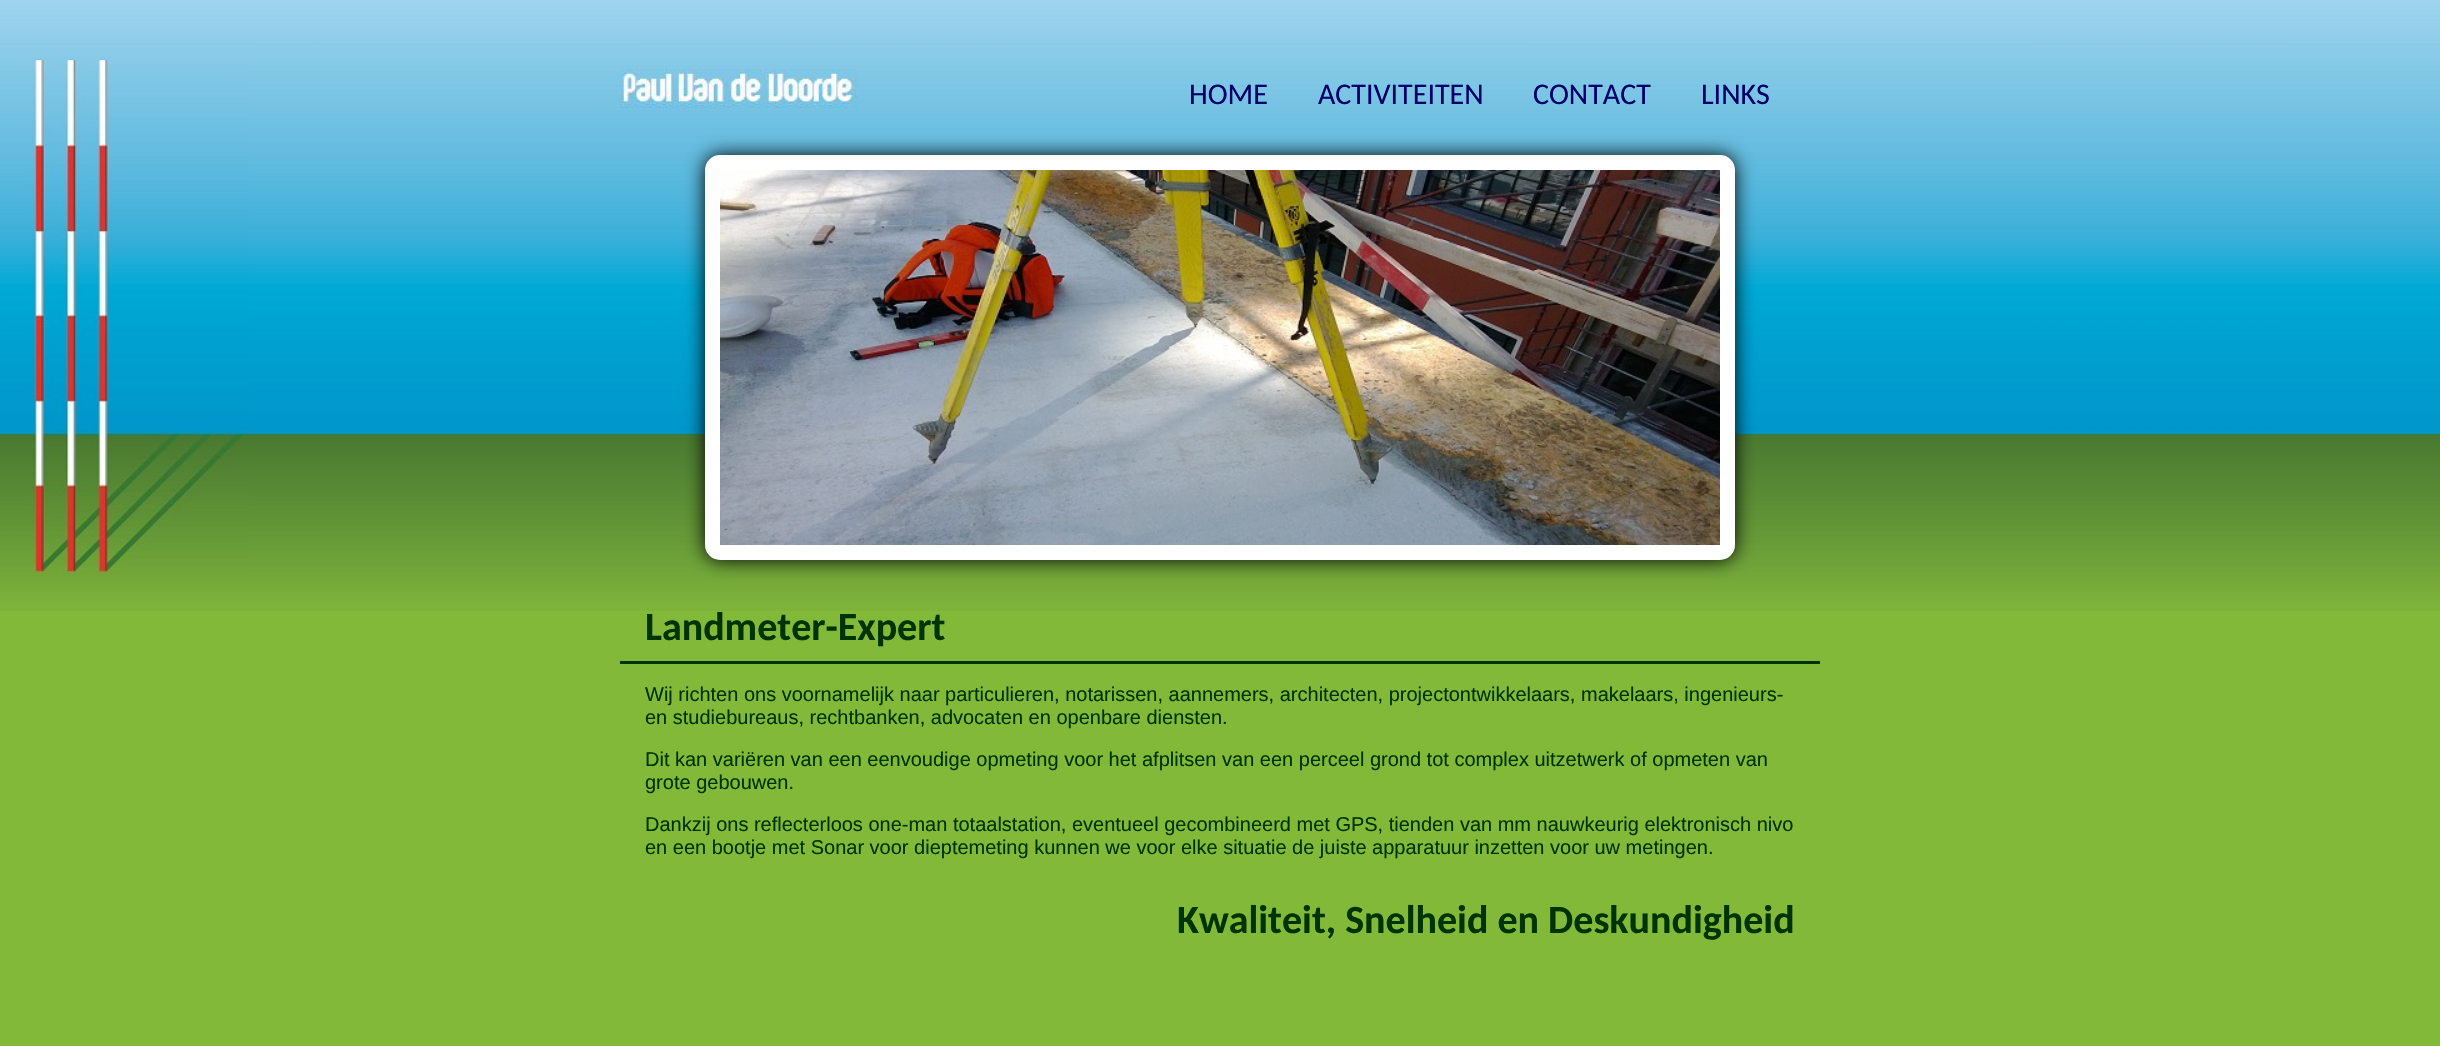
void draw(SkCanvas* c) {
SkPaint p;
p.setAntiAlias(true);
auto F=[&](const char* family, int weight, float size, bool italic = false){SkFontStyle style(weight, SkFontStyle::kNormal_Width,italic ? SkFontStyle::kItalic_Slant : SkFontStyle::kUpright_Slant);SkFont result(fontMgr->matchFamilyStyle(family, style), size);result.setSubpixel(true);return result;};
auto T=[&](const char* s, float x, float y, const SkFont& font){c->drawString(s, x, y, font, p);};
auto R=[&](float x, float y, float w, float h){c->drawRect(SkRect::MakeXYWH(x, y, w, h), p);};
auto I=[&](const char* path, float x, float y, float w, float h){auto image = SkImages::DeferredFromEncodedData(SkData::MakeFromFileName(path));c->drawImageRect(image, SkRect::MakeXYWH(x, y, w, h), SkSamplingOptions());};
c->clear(0xff83b938);
I("1.png",0,0,2440,611);
I("2.png",31,55,218,520);
I("3.png",620,68,238,41);
auto f1 = F("Carlito",400,30);
p.setColor(0xff000066);
T("HOME",1189,104,f1);
T("ACTIVITEITEN",1318,104,f1);
T("CONTACT",1533,104,f1);
T("LINKS",1701,104,f1);
p.setColor(0xff000000);
p.setMaskFilter(SkMaskFilter::MakeBlur(kNormal_SkBlurStyle, 9.5));
c->drawRoundRect(SkRect::MakeXYWH(705,155,1030,405),15,15,p);
p.setMaskFilter(nullptr);
p.setStroke(true);
p.setStrokeWidth(15);
p.setColor(0xffffffff);
c->drawRoundRect(SkRect::MakeXYWH(712.5,162.5,1015,390),7.5,7.5,p);
I("4.png",720,170,1000,375);
auto f2 = F("Carlito",700,40);
p.setStroke(false);
p.setColor(0xff003300);
T("Landmeter-Expert",645,640,f2);
R(620,661,1200,3);
auto f3 = F("Liberation Sans",400,20);
T("Wij richten ons voornamelijk naar particulieren, notarissen, aannemers, architecten, projectontwikkelaars, makelaars, ingenieurs-",645,701,f3);
T("en studiebureaus, rechtbanken, advocaten en openbare diensten.",645,724,f3);
T("Dit kan variëren van een eenvoudige opmeting voor het afplitsen van een perceel grond tot complex uitzetwerk of opmeten van",645,766,f3);
T("grote gebouwen.",645,789,f3);
T("Dankzij ons reflecterloos one-man totaalstation, eventueel gecombineerd met GPS, tienden van mm nauwkeurig elektronisch nivo",645,831,f3);
T("en een bootje met Sonar voor dieptemeting kunnen we voor elke situatie de juiste apparatuur inzetten voor uw metingen.",645,854,f3);
T("Kwaliteit, Snelheid en Deskundigheid",1177,933,f2);
}
